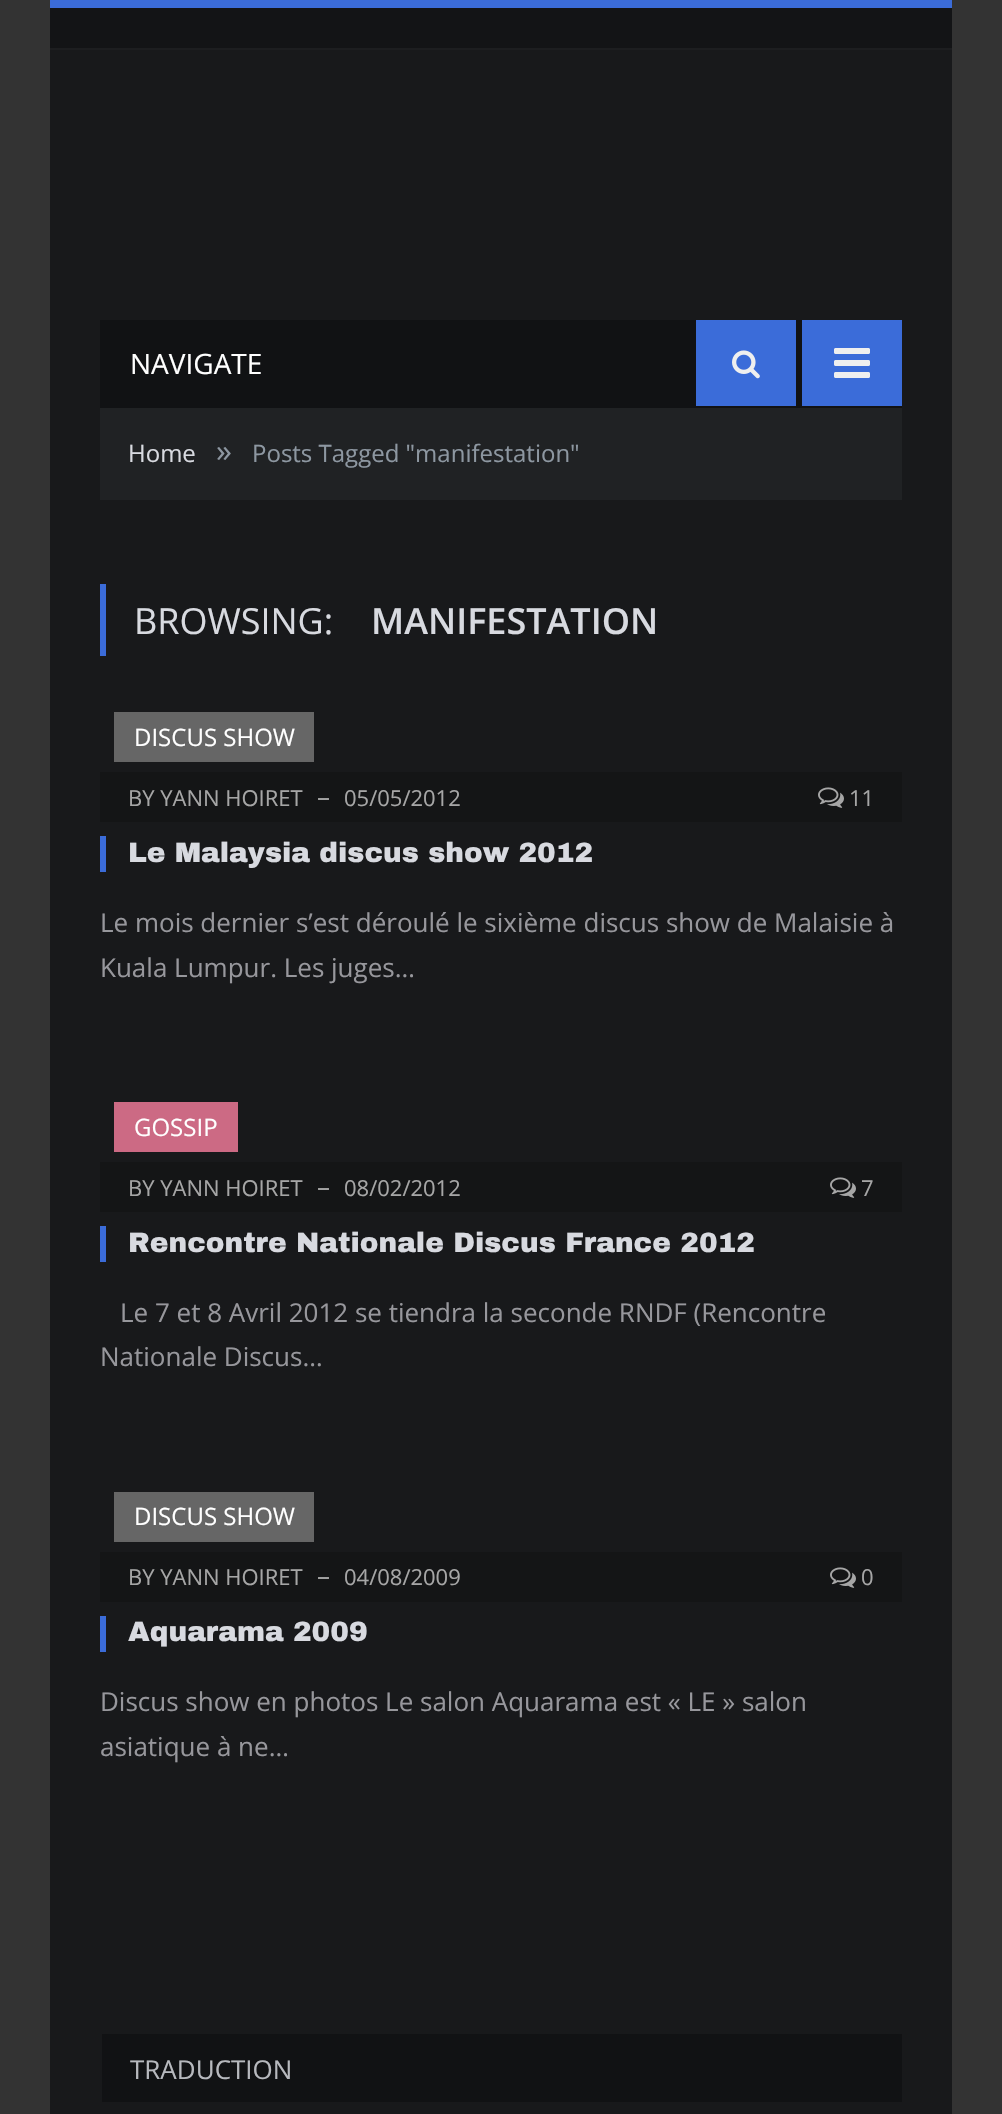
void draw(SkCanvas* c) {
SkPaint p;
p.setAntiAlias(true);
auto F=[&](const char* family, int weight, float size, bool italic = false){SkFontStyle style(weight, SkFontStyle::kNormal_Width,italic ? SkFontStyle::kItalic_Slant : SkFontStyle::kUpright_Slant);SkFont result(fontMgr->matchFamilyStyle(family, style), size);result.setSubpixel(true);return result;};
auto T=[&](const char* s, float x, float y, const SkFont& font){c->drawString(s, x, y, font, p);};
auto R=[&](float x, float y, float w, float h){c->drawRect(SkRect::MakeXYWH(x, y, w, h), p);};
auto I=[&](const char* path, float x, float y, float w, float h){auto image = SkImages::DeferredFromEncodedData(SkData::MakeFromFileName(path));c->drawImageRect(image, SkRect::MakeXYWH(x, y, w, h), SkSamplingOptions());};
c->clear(0xff333333);
p.setColor(0xff18191b);
R(50,50,902,2064);
p.setColor(0xff131416);
R(50,8,902,40);
p.setColor(0xff3b6cd9);
R(50,0,902,8);
p.setColor(0xff1d1e20);
R(50,48,902,2);
p.setColor(0xff111214);
R(100,320,802,88);
auto f1 = F("Open Sans",400,28);
p.setColor(0xffffffff);
T("NAVIGATE",130,374,f1);
p.setColor(0xff3b6cd9);
R(696,320,100,86);
I("1.png",732,350,28,29);
R(802,320,100,86);
I("2.png",834,348,36,30);
p.setColor(0xff202224);
R(100,408,802,92);
auto f2 = F("Open Sans",400,24);
p.setColor(0xffd8dae0);
T("Home",128,462,f2);
auto f3 = F("Open Sans",400,32);
p.setColor(0xff8d97a1);
T("»",216,462,f3);
T("Posts Tagged \"manifestation\"",252,462,f2);
p.setColor(0xff3b6cd9);
R(100,584,6,72);
auto f4 = F("Open Sans",400,36);
p.setColor(0xffd8dae0);
T("BROWSING:",134,634,f4);
auto f5 = F("Open Sans",600,36);
T("MANIFESTATION",371,634,f5);
p.setColor(0xff666666);
R(114,712,200,50);
p.setColor(0xffffffff);
T("DISCUS SHOW",134,746,f2);
p.setColor(0xff141516);
R(100,772,802,50);
auto f6 = F("Open Sans",400,22);
p.setColor(0xffa6a6a6);
T("BY YANN HOIRET",128,806,f6);
auto f7 = F("Open Sans",400,26);
T("–",317,806,f7);
T("05/05/2012",344,806,f6);
I("3.png",818,787,26,21);
T("11",849,806,f6);
p.setColor(0xff3b6cd9);
R(100,836,6,36);
auto f8 = F("Archivo Black",900,28);
p.setColor(0xffd8dae0);
T("Le Malaysia discus show 2012",128,862,f8);
p.setColor(0xff97979c);
T("Le mois dernier s’est déroulé le sixième discus show de Malaisie à",100,932,f7);
T("Kuala Lumpur. Les juges…",100,977,f7);
p.setColor(0xffcc6a84);
R(114,1102,124,50);
p.setColor(0xffffffff);
T("GOSSIP",134,1136,f2);
p.setColor(0xff141516);
R(100,1162,802,50);
p.setColor(0xffa6a6a6);
T("BY YANN HOIRET",128,1196,f6);
T("–",317,1196,f7);
T("08/02/2012",344,1196,f6);
I("3.png",830,1177,26,21);
T("7",861,1196,f6);
p.setColor(0xff3b6cd9);
R(100,1226,6,36);
p.setColor(0xffd8dae0);
T("Rencontre Nationale Discus France 2012",128,1252,f8);
p.setColor(0xff97979c);
T("Le 7 et 8 Avril 2012 se tiendra la seconde RNDF (Rencontre",120,1322,f7);
T("Nationale Discus…",100,1366,f7);
p.setColor(0xff666666);
R(114,1492,200,50);
p.setColor(0xffffffff);
T("DISCUS SHOW",134,1525,f2);
p.setColor(0xff141516);
R(100,1552,802,50);
p.setColor(0xffa6a6a6);
T("BY YANN HOIRET",128,1585,f6);
T("–",317,1585,f7);
T("04/08/2009",344,1585,f6);
I("3.png",830,1567,26,21);
T("0",861,1585,f6);
p.setColor(0xff3b6cd9);
R(100,1616,6,36);
p.setColor(0xffd8dae0);
T("Aquarama 2009",128,1641,f8);
p.setColor(0xff97979c);
T("Discus show en photos Le salon Aquarama est « LE » salon",100,1711,f7);
T("asiatique à ne…",100,1756,f7);
p.setColor(0xff111214);
R(102,2034,800,68);
p.setColor(0xffb7b9be);
T("TRADUCTION",130,2079,f7);
}
